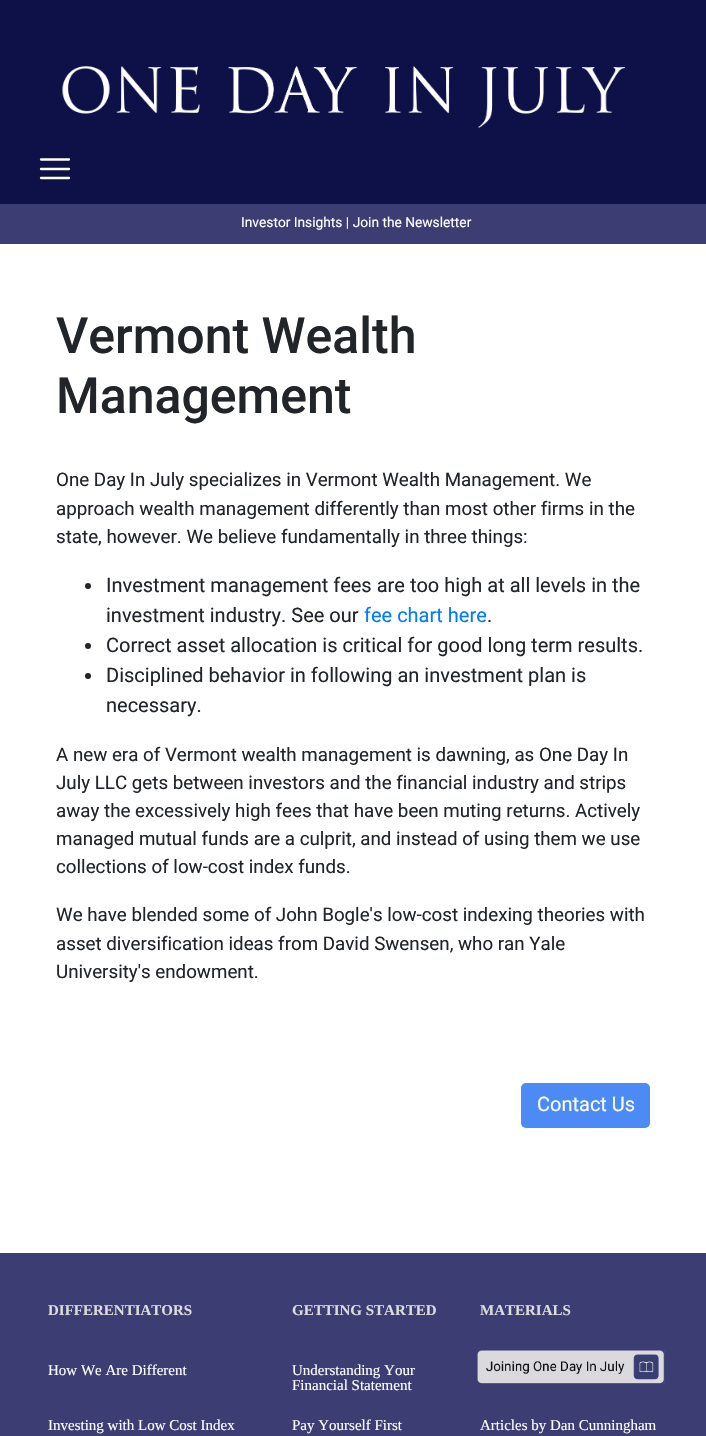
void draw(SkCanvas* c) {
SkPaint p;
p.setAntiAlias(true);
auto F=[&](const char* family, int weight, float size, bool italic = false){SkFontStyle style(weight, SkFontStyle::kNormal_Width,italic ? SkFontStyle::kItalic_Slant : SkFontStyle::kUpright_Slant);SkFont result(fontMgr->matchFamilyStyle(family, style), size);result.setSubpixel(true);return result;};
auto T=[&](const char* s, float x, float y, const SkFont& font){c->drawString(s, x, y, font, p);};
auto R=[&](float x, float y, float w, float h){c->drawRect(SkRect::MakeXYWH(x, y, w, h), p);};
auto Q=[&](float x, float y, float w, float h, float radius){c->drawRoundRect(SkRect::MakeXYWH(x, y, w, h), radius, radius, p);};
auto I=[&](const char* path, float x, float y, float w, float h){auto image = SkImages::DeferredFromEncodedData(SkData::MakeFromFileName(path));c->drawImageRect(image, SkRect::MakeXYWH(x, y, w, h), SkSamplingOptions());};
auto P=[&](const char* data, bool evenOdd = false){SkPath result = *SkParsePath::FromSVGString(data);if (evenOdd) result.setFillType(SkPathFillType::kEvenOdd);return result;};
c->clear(0xffffffff);
p.setColor(0xff0d1148);
R(0,0,706,204);
I("1.png",62,66,563,62);
p.setStroke(true);
p.setStrokeWidth(2.3);
p.setStrokeCap(SkPaint::kRound_Cap);
p.setColor(0xffffffff);
c->drawPath(P("M41 159.5h28m-28 9.5h28m-28 9h28"),p);
p.setStroke(false);
p.setColor(0xff3c3d72);
R(0,204,706,40);
auto f1 = F("Roboto",400,13.75);
p.setColor(0xffffffff);
T("Investor Insights | Join the Newsletter",241,227,f1);
auto f2 = F("Roboto",500,50);
p.setColor(0xff212529);
T("Vermont Wealth",56,353,f2);
T("Management",56,413,f2);
auto f3 = F("Roboto",400,18.75);
T("One Day In July specializes in Vermont Wealth Management. We",56,486,f3);
T("approach wealth management differently than most other firms in the",56,515,f3);
T("state, however. We believe fundamentally in three things:",56,543,f3);
c->drawCircle(88,586,3,p);
auto f4 = F("Roboto",400,20);
T("Investment management fees are too high at all levels in the",106,592,f4);
T("investment industry. See our",106,622,f4);
p.setColor(0xff007bff);
T("fee chart here",364,622,f4);
p.setColor(0xff212529);
T(".",487,622,f4);
c->drawCircle(88,646,3,p);
T("Correct asset allocation is critical for good long term results.",106,652,f4);
c->drawCircle(88,676,3,p);
T("Disciplined behavior in following an investment plan is",106,682,f4);
T("necessary.",106,712,f4);
T("A new era of Vermont wealth management is dawning, as One Day In",56,761,f3);
T("July LLC gets between investors and the financial industry and strips",56,789,f3);
T("away the excessively high fees that have been muting returns. Actively",56,817,f3);
T("managed mutual funds are a culprit, and instead of using them we use",56,845,f3);
T("collections of low-cost index funds.",56,873,f3);
T("We have blended some of John Bogle's low-cost indexing theories with",56,921,f3);
T("asset diversification ideas from David Swensen, who ran Yale",56,950,f3);
T("University's endowment.",56,978,f3);
p.setColor(0xff4c8bf5);
Q(521,1083,129,45,5);
p.setColor(0xffffffff);
T("Contact Us",537,1111,f4);
p.setColor(0xff3c3d72);
R(0,1253,706,183);
auto f5 = F("Liberation Serif",700,15);
p.setColor(0xffdcdcdc);
T("DIFFERENTIATORS",48,1315,f5);
T("GETTING STARTED",292,1315,f5);
T("MATERIALS",480,1315,f5);
auto f6 = F("Liberation Serif",400,15);
p.setColor(0xffffffff);
T("How We Are Different",48,1375,f6);
T("Understanding Your",292,1375,f6);
T("Financial Statement",292,1390,f6);
I("2.png",477,1350,188,34);
T("Investing with Low Cost Index",48,1430,f6);
T("Pay Yourself First",292,1430,f6);
T("Articles by Dan Cunningham",480,1430,f6);
}
